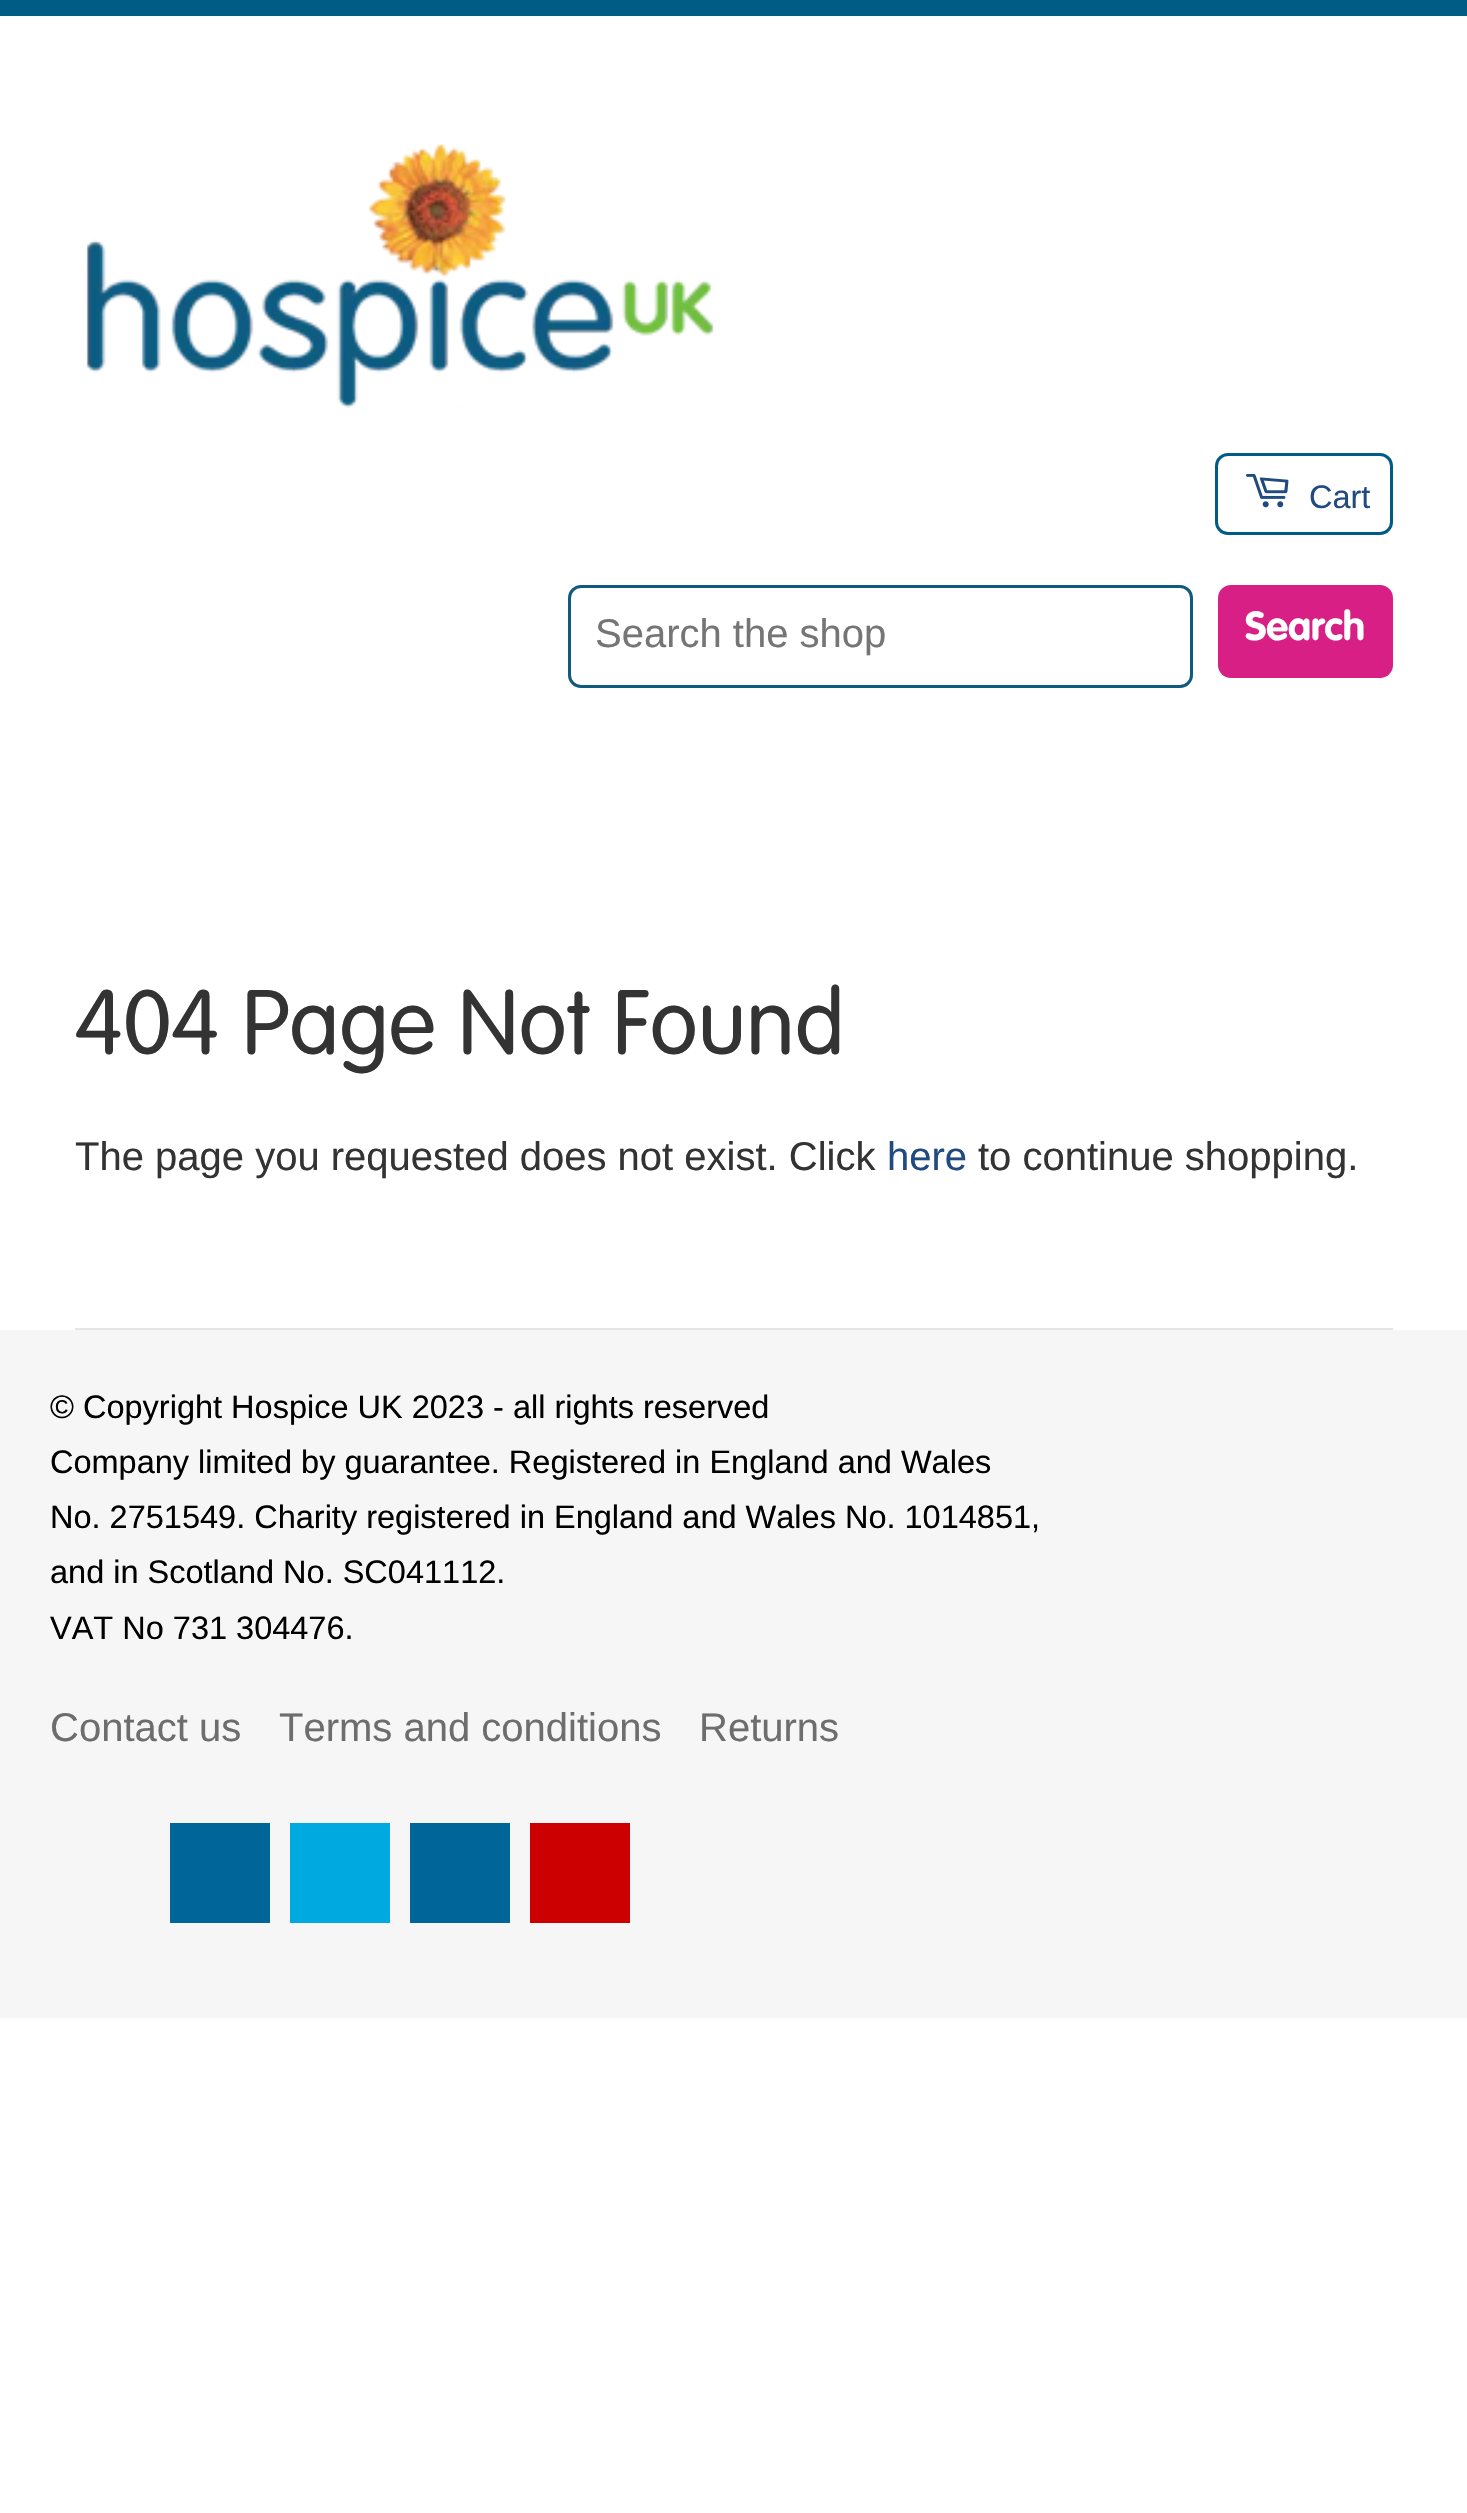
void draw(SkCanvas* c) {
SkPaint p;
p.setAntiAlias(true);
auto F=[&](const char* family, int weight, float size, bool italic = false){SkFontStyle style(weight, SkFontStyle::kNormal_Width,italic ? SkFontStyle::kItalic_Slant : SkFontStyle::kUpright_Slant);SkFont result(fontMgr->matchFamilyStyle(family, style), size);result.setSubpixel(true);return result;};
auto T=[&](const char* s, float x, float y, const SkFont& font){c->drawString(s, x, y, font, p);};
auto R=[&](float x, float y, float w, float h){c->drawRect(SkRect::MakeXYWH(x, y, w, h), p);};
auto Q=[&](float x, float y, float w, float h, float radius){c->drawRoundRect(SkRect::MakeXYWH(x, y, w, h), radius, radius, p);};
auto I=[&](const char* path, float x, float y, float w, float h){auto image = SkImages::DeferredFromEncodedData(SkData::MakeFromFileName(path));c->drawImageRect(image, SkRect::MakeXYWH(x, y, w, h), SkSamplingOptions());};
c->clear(0xffffffff);
p.setColor(0xff005c84);
R(0,0,1467,16);
I("1.png",86,144,628,264);
p.setStroke(true);
p.setStrokeWidth(3);
c->drawRoundRect(SkRect::MakeXYWH(1216.5,454.5,175,79),11.5,11.5,p);
I("2.png",1246,474,43,34);
auto f1 = F("Liberation Sans",400,32.5);
p.setStroke(false);
p.setColor(0xff204a80);
T("Cart",1309,508,f1);
p.setStroke(true);
p.setColor(0xff10597f);
c->drawRoundRect(SkRect::MakeXYWH(569.5,586.5,622,100),11.5,11.5,p);
auto f2 = F("Liberation Sans",400,40);
p.setStroke(false);
p.setColor(0xff757575);
T("Search the shop",595,647,f2);
p.setColor(0xffd71f85);
Q(1218,585,175,93,13);
auto f3 = F("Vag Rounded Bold",700,40);
p.setColor(0xffffffff);
T("Search",1245,640,f3);
auto f4 = F("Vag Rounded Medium",300,90);
p.setColor(0xff333333);
T("404 Page Not Found",75,1054,f4);
T("The page you requested does not exist. Click",75,1170,f2);
p.setColor(0xff204a80);
T("here",887,1170,f2);
p.setColor(0xff333333);
T("to continue shopping.",978,1170,f2);
p.setColor(0xffe5e5e5);
R(75,1328,1318,2);
p.setColor(0xfff6f6f6);
R(0,1330,1467,688);
p.setColor(0xff000000);
T("© Copyright Hospice UK 2023 - all rights reserved",50,1418,f1);
T("Company limited by guarantee. Registered in England and Wales",50,1473,f1);
T("No. 2751549. Charity registered in England and Wales No. 1014851,",50,1528,f1);
T("and in Scotland No. SC041112.",50,1583,f1);
T("VAT No 731 304476.",50,1639,f1);
p.setColor(0xff6d6d6d);
T("Contact us",50,1741,f2);
T("Terms and conditions",279,1741,f2);
T("Returns",699,1741,f2);
p.setColor(0xff006699);
R(170,1823,100,100);
p.setColor(0xff00a9e0);
R(290,1823,100,100);
p.setColor(0xff006699);
R(410,1823,100,100);
p.setColor(0xffcc0000);
R(530,1823,100,100);
}
